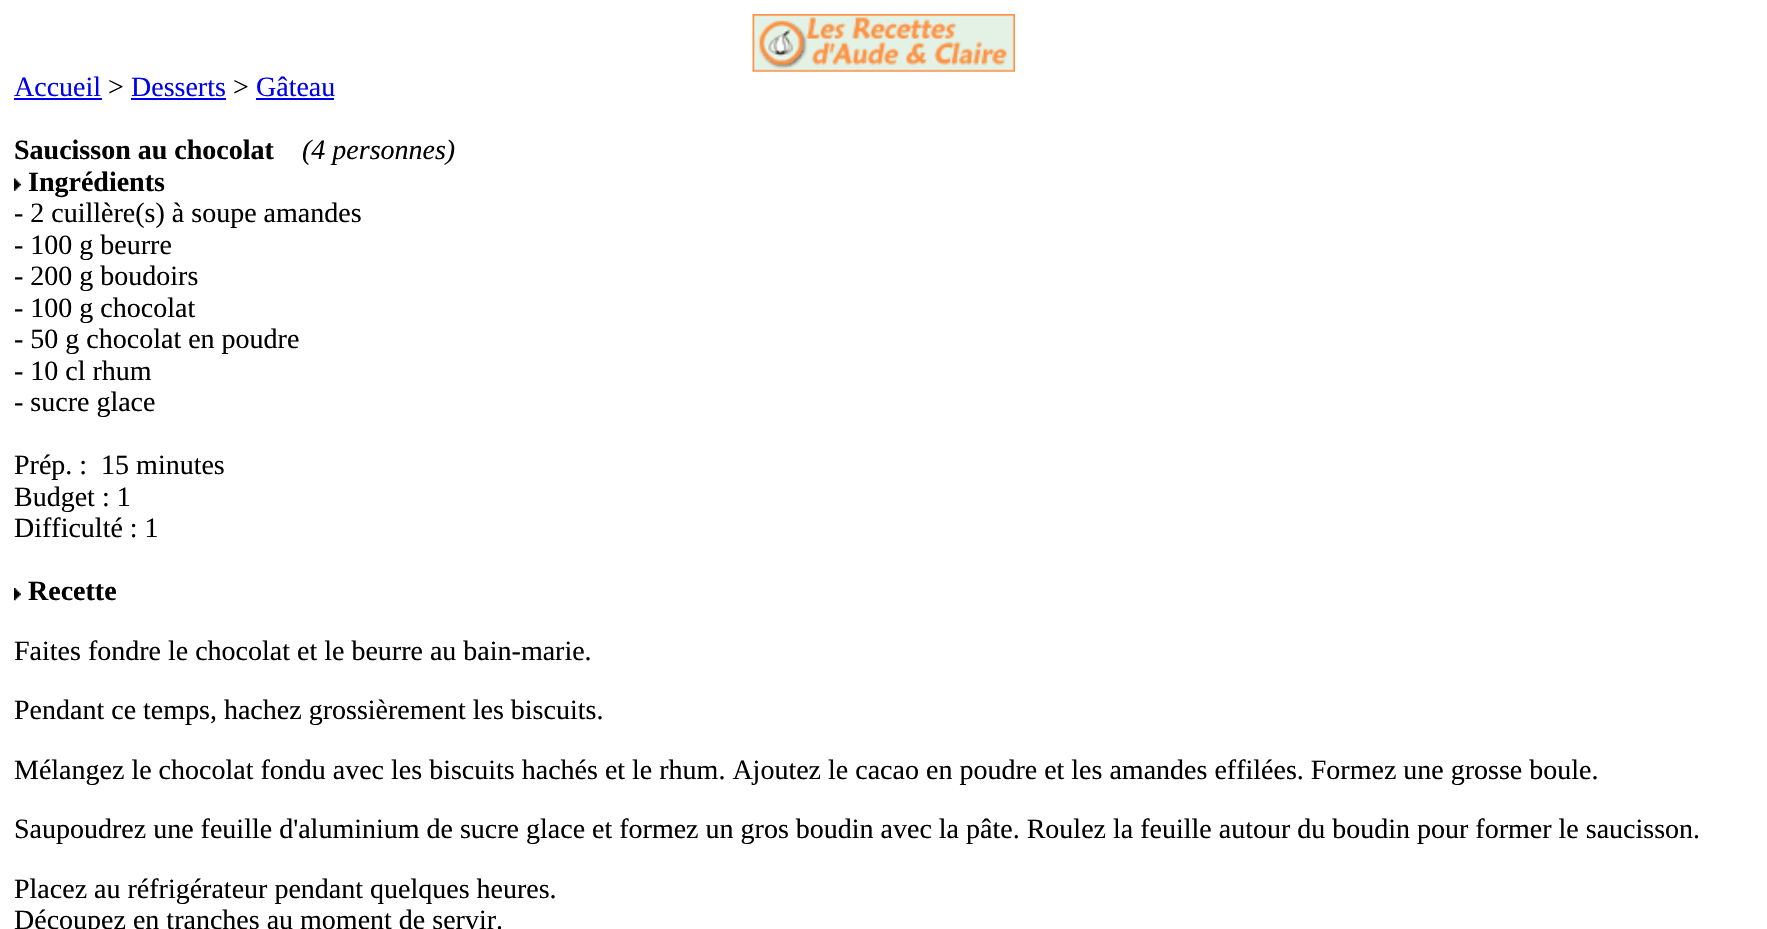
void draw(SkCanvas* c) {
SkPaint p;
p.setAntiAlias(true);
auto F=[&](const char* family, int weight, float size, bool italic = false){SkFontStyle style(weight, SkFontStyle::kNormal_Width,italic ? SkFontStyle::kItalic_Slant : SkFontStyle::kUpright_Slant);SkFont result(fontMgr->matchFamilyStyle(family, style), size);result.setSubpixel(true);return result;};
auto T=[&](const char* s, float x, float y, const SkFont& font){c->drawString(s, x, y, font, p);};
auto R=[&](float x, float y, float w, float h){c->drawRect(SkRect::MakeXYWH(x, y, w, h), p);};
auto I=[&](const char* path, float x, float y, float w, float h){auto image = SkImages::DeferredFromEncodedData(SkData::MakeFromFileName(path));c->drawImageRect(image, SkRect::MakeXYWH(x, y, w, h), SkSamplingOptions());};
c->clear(0xffffffff);
I("1.png",752,14,263,58);
auto f1 = F("Liberation Serif",400,28);
p.setColor(0xff0000ee);
T("Accueil",14,96,f1);
R(14,98,88,2);
p.setColor(0xff000000);
T(">",108,96,f1);
p.setColor(0xff0000ee);
T("Desserts",131,96,f1);
R(131,98,95,2);
p.setColor(0xff000000);
T(">",233,96,f1);
p.setColor(0xff0000ee);
T("Gâteau",256,96,f1);
R(256,98,78,2);
auto f2 = F("Liberation Serif",700,28);
p.setColor(0xff000000);
T("Saucisson au chocolat",14,159,f2);
auto f3 = F("Liberation Serif",400,28,true);
T("(4 personnes)",302,159,f3);
I("2.png",14,178,7,13);
T("Ingrédients",28,191,f2);
T("- 2 cuillère(s) à soupe amandes",14,222,f1);
T("- 100 g beurre",14,254,f1);
T("- 200 g boudoirs",14,285,f1);
T("- 100 g chocolat",14,317,f1);
T("- 50 g chocolat en poudre",14,348,f1);
T("- 10 cl rhum",14,380,f1);
T("- sucre glace",14,411,f1);
T("Prép. :  15 minutes",14,474,f1);
T("Budget : 1",14,506,f1);
T("Difficulté : 1",14,537,f1);
I("3.png",14,588,7,13);
T("Recette",28,600,f2);
T("Faites fondre le chocolat et le beurre au bain-marie.",14,660,f1);
T("Pendant ce temps, hachez grossièrement les biscuits.",14,719,f1);
T("Mélangez le chocolat fondu avec les biscuits hachés et le rhum. Ajoutez le cacao en poudre et les amandes effilées. Formez une grosse boule.",14,779,f1);
T("Saupoudrez une feuille d'aluminium de sucre glace et formez un gros boudin avec la pâte. Roulez la feuille autour du boudin pour former le saucisson.",14,838,f1);
T("Placez au réfrigérateur pendant quelques heures.",14,898,f1);
T("Découpez en tranches au moment de servir.",14,929,f1);
}
